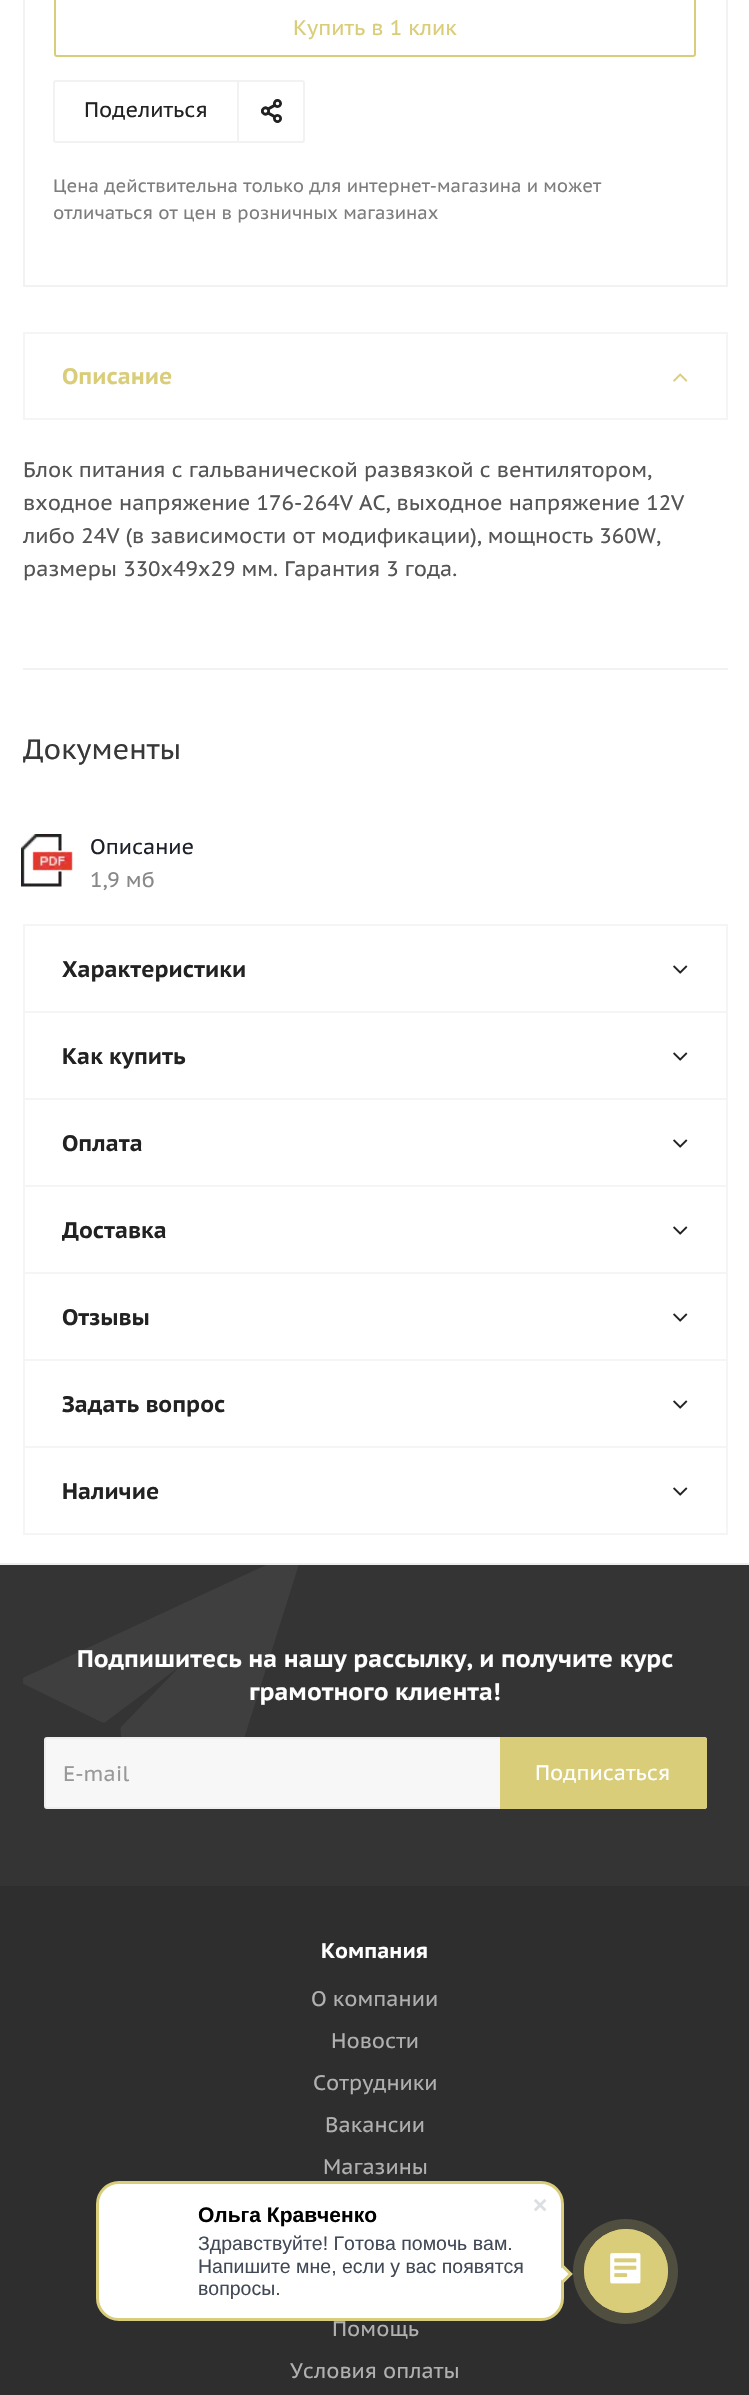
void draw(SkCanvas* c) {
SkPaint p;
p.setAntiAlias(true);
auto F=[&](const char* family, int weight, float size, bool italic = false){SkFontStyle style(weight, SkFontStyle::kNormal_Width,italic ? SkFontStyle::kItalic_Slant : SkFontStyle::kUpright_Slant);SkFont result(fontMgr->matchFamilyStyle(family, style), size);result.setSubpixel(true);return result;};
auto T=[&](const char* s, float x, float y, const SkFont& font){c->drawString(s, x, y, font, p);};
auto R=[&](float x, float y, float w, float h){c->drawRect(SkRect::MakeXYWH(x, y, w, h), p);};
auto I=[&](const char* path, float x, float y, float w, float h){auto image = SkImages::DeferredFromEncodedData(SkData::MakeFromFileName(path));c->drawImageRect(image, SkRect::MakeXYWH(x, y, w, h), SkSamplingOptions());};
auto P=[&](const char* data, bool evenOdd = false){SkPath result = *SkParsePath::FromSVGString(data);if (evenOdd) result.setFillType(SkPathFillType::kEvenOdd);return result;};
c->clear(0xffffffff);
p.setStroke(true);
p.setStrokeWidth(2);
p.setColor(0xfff2f2f2);
c->drawRect(SkRect::MakeXYWH(24,-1,703,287),p);
p.setColor(0xffdacd7a);
c->drawRoundRect(SkRect::MakeXYWH(55,-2,640,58),2,2,p);
auto f1 = F("PT Sans Caption",400,21);
p.setStroke(false);
T("Купить в 1 клик",293,35,f1);
p.setColor(0xfff2f2f2);
R(237,80,2,63);
I("1.png",261,99,21,24);
p.setStroke(true);
c->drawRoundRect(SkRect::MakeXYWH(54,81,250,61),2,2,p);
p.setStroke(false);
p.setColor(0xff222222);
T("Поделиться",84,117,f1);
auto f2 = F("PT Sans Caption",400,18);
p.setColor(0xff7d7d7d);
T("Цена действительна только для интернет-магазина и может",53,192,f2);
T("отличаться от цен в розничных магазинах",53,219,f2);
p.setStroke(true);
p.setColor(0xfff5f5f5);
c->drawRect(SkRect::MakeXYWH(24,333,703,86),p);
auto f3 = F("PT Sans Caption",700,22.5);
p.setStroke(false);
p.setColor(0xffdacd7a);
T("Описание",62,384,f3);
I("2.png",673,373,15,9);
p.setColor(0xff555555);
T("Блок питания с гальванической развязкой с вентилятором,",23,477,f1);
T("входное напряжение 176-264V АС, выходное напряжение 12V",23,510,f1);
T("либо 24V (в зависимости от модификации), мощность 360W,",23,543,f1);
T("размеры 330x49x29 мм. Гарантия 3 года.",23,576,f1);
p.setColor(0xfff2f2f2);
R(23,668,705,2);
auto f4 = F("PT Sans Caption",400,28);
p.setColor(0xff383838);
T("Документы",23,759,f4);
I("3.png",21,834,52,53);
p.setColor(0xff1d2029);
T("Описание",90,854,f1);
p.setColor(0xff888888);
T("1,9 мб",90,887,f1);
p.setStroke(true);
p.setColor(0xfff5f5f5);
c->drawRect(SkRect::MakeXYWH(24,925,703,87),p);
p.setStroke(false);
p.setColor(0xff222222);
T("Характеристики",62,977,f3);
I("4.png",673,965,15,9);
p.setStroke(true);
p.setColor(0xfff5f5f5);
c->drawRect(SkRect::MakeXYWH(24,1012,703,87),p);
p.setStroke(false);
p.setColor(0xff222222);
T("Как купить",62,1064,f3);
I("4.png",673,1052,15,9);
p.setStroke(true);
p.setColor(0xfff5f5f5);
c->drawRect(SkRect::MakeXYWH(24,1099,703,87),p);
p.setStroke(false);
p.setColor(0xff222222);
T("Оплата",62,1151,f3);
I("4.png",673,1139,15,9);
p.setStroke(true);
p.setColor(0xfff5f5f5);
c->drawRect(SkRect::MakeXYWH(24,1186,703,87),p);
p.setStroke(false);
p.setColor(0xff222222);
T("Доставка",62,1238,f3);
I("4.png",673,1226,15,9);
p.setStroke(true);
p.setColor(0xfff5f5f5);
c->drawRect(SkRect::MakeXYWH(24,1273,703,87),p);
p.setStroke(false);
p.setColor(0xff222222);
T("Отзывы",62,1325,f3);
I("4.png",673,1313,15,9);
p.setStroke(true);
p.setColor(0xfff5f5f5);
c->drawRect(SkRect::MakeXYWH(24,1360,703,87),p);
p.setStroke(false);
p.setColor(0xff222222);
T("Задать вопрос",62,1412,f3);
I("4.png",673,1400,15,9);
p.setStroke(true);
p.setColor(0xfff5f5f5);
c->drawRect(SkRect::MakeXYWH(24,1447,703,87),p);
p.setStroke(false);
p.setColor(0xff222222);
T("Наличие",62,1499,f3);
I("4.png",673,1487,15,9);
p.setColor(0xffeeeeee);
R(0,1563,749,2);
p.setColor(0xff343435);
R(0,1565,749,321);
I("5.png",23,1565,276,172);
auto f5 = F("PT Sans Caption",700,24);
p.setColor(0xffffffff);
T("Подпишитесь на нашу рассылку, и получите курс",77,1667,f5);
T("грамотного клиента!",249,1700,f5);
p.setColor(0xfff7f7f7);
c->drawRoundRect(SkRect::MakeXYWH(45,1738,661,70),2,2,p);
p.setStroke(true);
p.setColor(0xffeeeeee);
c->drawRoundRect(SkRect::MakeXYWH(45,1738,661,70),2,2,p);
p.setStroke(false);
p.setColor(0xff999999);
T("E-mail",63,1781,f1);
p.setColor(0xffdacd7a);
c->drawPath(P("M501 1738h203c1 0 2 1 2 2v66c0 1-1 2-2 2h-203z"),p);
p.setStroke(true);
c->drawPath(P("M501 1738h203c1 0 2 1 2 2v66c0 1-1 2-2 2h-203z"),p);
p.setStroke(false);
p.setColor(0xffffffff);
T("Подписаться",535,1780,f1);
p.setColor(0xff2e2e2f);
R(0,1886,749,509);
auto f6 = F("PT Sans Caption",700,21);
p.setColor(0xffffffff);
T("Компания",321,1958,f6);
p.setColor(0xffb0b0b0);
T("О компании",311,2006,f1);
T("Новости",331,2048,f1);
T("Сотрудники",313,2090,f1);
T("Вакансии",325,2132,f1);
T("Магазины",323,2174,f1);
T("Помощь",332,2336,f1);
T("Условия оплаты",290,2378,f1);
p.setColor(0xffffffff);
c->drawRoundRect(SkRect::MakeXYWH(97.5,2182.5,465,137),21.5,21.5,p);
p.setStroke(true);
p.setStrokeWidth(3);
p.setColor(0xffdacd7a);
c->drawRoundRect(SkRect::MakeXYWH(97.5,2182.5,465,137),21.5,21.5,p);
I("6.png",534,2199,13,13);
auto f7 = F("Liberation Sans",700,21);
p.setStroke(false);
p.setColor(0xff000000);
T("Ольга Кравченко",198,2222,f7);
auto f8 = F("Liberation Sans",400,19.5);
p.setColor(0xff424956);
T("Здравствуйте! Готова помочь вам.",198,2250,f8);
T("Напишите мне, если у вас появятся",198,2273,f8);
T("вопросы.",198,2295,f8);
p.setColor(0xffffffff);
c->drawPath(P("M555.5 2274l8.5-8.5l8.5 8.5l-8.5 8.5z"),p);
p.setColor(0xffdacd7a);
c->drawPath(P("M562 2267.5l2-2l8.5 8.5l-2 2z"),p);
c->drawPath(P("M562 2280.5l8.5-8.5l2 2l-8.5 8.5z"),p);
p.setColor(0xff504e3e);
c->drawCircle(625.5,2271.5,52.5,p);
p.setStroke(true);
p.setStrokeWidth(1);
p.setColor(0xffdacd7a);
c->drawCircle(626,2271,41.5,p);
p.setStroke(false);
c->drawCircle(626,2271,42,p);
I("7.png",610,2253,31,31);
}
